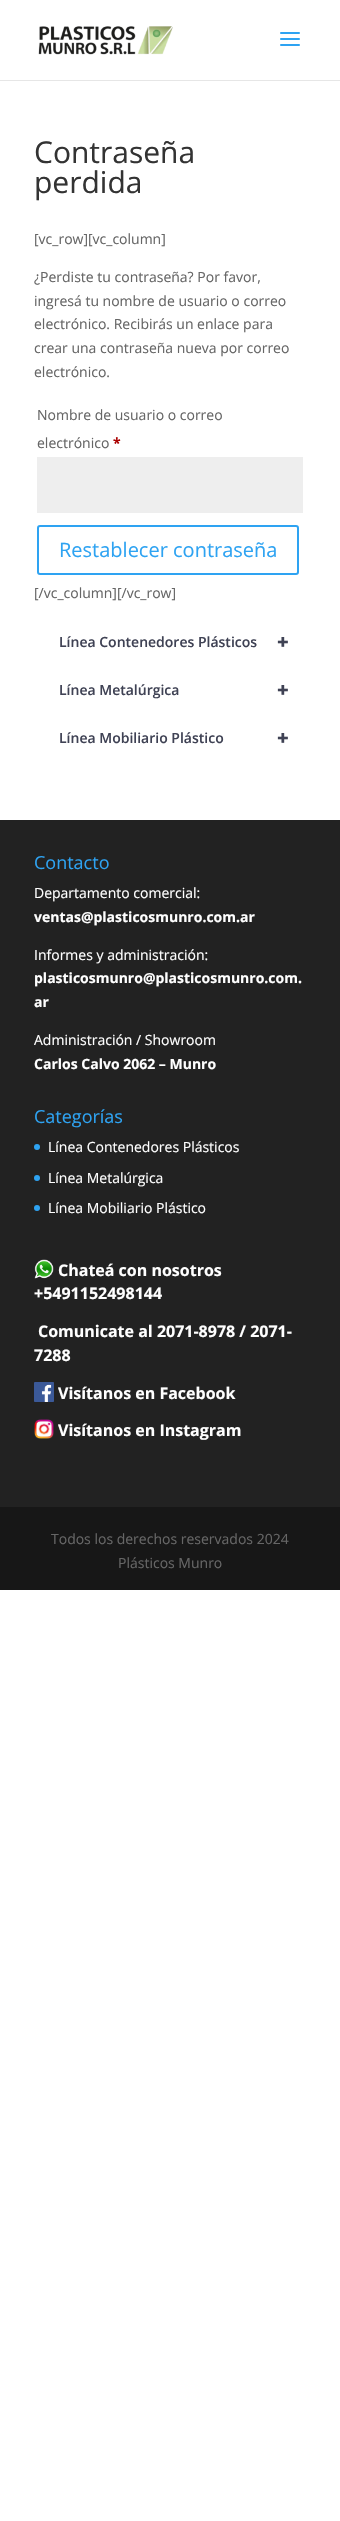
void draw(SkCanvas* c) {
SkPaint p;
p.setAntiAlias(true);
auto F=[&](const char* family, int weight, float size, bool italic = false){SkFontStyle style(weight, SkFontStyle::kNormal_Width,italic ? SkFontStyle::kItalic_Slant : SkFontStyle::kUpright_Slant);SkFont result(fontMgr->matchFamilyStyle(family, style), size);result.setSubpixel(true);return result;};
auto T=[&](const char* s, float x, float y, const SkFont& font){c->drawString(s, x, y, font, p);};
auto R=[&](float x, float y, float w, float h){c->drawRect(SkRect::MakeXYWH(x, y, w, h), p);};
auto I=[&](const char* path, float x, float y, float w, float h){auto image = SkImages::DeferredFromEncodedData(SkData::MakeFromFileName(path));c->drawImageRect(image, SkRect::MakeXYWH(x, y, w, h), SkSamplingOptions());};
c->clear(0xffffffff);
p.setColor(0xffe6e6e6);
R(0,80,340,1);
I("1.png",38,26,135,29);
I("2.png",280,32,20,14);
auto f1 = F("Open Sans",400,30);
p.setColor(0xff333333);
T("Contraseña",34,163,f1);
T("perdida",34,193,f1);
auto f2 = F("Open Sans",400,14);
p.setColor(0xff666666);
T("[vc_row][vc_column]",34,244,f2);
T("¿Perdiste tu contraseña? Por favor,",34,282,f2);
T("ingresá tu nombre de usuario o correo",34,306,f2);
T("electrónico. Recibirás un enlace para",34,329,f2);
T("crear una contraseña nueva por correo",34,353,f2);
T("electrónico.",34,377,f2);
T("Nombre de usuario o correo",37,420,f2);
T("electrónico",37,448,f2);
auto f3 = F("Open Sans",700,14);
p.setColor(0xffaa0000);
T("*",113,448,f3);
p.setColor(0xffeeeeee);
R(37,457,266,56);
p.setStroke(true);
p.setStrokeWidth(2);
p.setColor(0xff2ea3f2);
c->drawRoundRect(SkRect::MakeXYWH(38,526,260,48),2,2,p);
auto f4 = F("Open Sans",400,20);
p.setStroke(false);
T("Restablecer contraseña",59,557,f4);
p.setColor(0xff666666);
T("[/vc_column][/vc_row]",34,598,f2);
auto f5 = F("Open Sans",600,14);
p.setColor(0xff3f4254);
T("Línea Contenedores Plásticos",59,647,f5);
auto f6 = F("Open Sans",800,20);
T("+",277,649,f6);
T("Línea Metalúrgica",59,695,f5);
T("+",277,697,f6);
T("Línea Mobiliario Plástico",59,743,f5);
T("+",277,745,f6);
p.setColor(0xff222222);
R(0,820,340,687);
auto f7 = F("Open Sans",400,18);
p.setColor(0xff2ea3f2);
T("Contacto",34,869,f7);
p.setColor(0xffffffff);
T("Departamento comercial:",34,898,f2);
T("ventas@plasticosmunro.com.ar",34,922,f3);
T("Informes y administración:",34,960,f2);
T("plasticosmunro@plasticosmunro.com.",34,983,f3);
T("ar",34,1007,f3);
T("Administración / Showroom",34,1045,f2);
T("Carlos Calvo 2062 – Munro",34,1069,f3);
p.setColor(0xff2ea3f2);
T("Categorías",34,1123,f7);
c->drawCircle(37,1147,3,p);
p.setColor(0xffffffff);
T("Línea Contenedores Plásticos",48,1152,f2);
p.setColor(0xff2ea3f2);
c->drawCircle(37,1178,3,p);
p.setColor(0xffffffff);
T("Línea Metalúrgica",48,1183,f2);
p.setColor(0xff2ea3f2);
c->drawCircle(37,1208,3,p);
p.setColor(0xffffffff);
T("Línea Mobiliario Plástico",48,1213,f2);
I("3.png",34,1259,20,20);
auto f8 = F("Open Sans",700,16);
T("Chateá con nosotros",58,1276,f8);
T("+5491152498144",34,1299,f8);
T("Comunicate al 2071-8978 / 2071-",38,1337,f8);
T("7288",34,1361,f8);
I("4.png",34,1382,20,20);
T("Visítanos en Facebook",58,1399,f8);
I("5.png",34,1419,20,20);
T("Visítanos en Instagram",58,1436,f8);
p.setColor(0xff171717);
R(0,1507,340,83);
p.setColor(0xff666666);
T("Todos los derechos reservados 2024",51,1544,f2);
T("Plásticos Munro",118,1568,f2);
}
